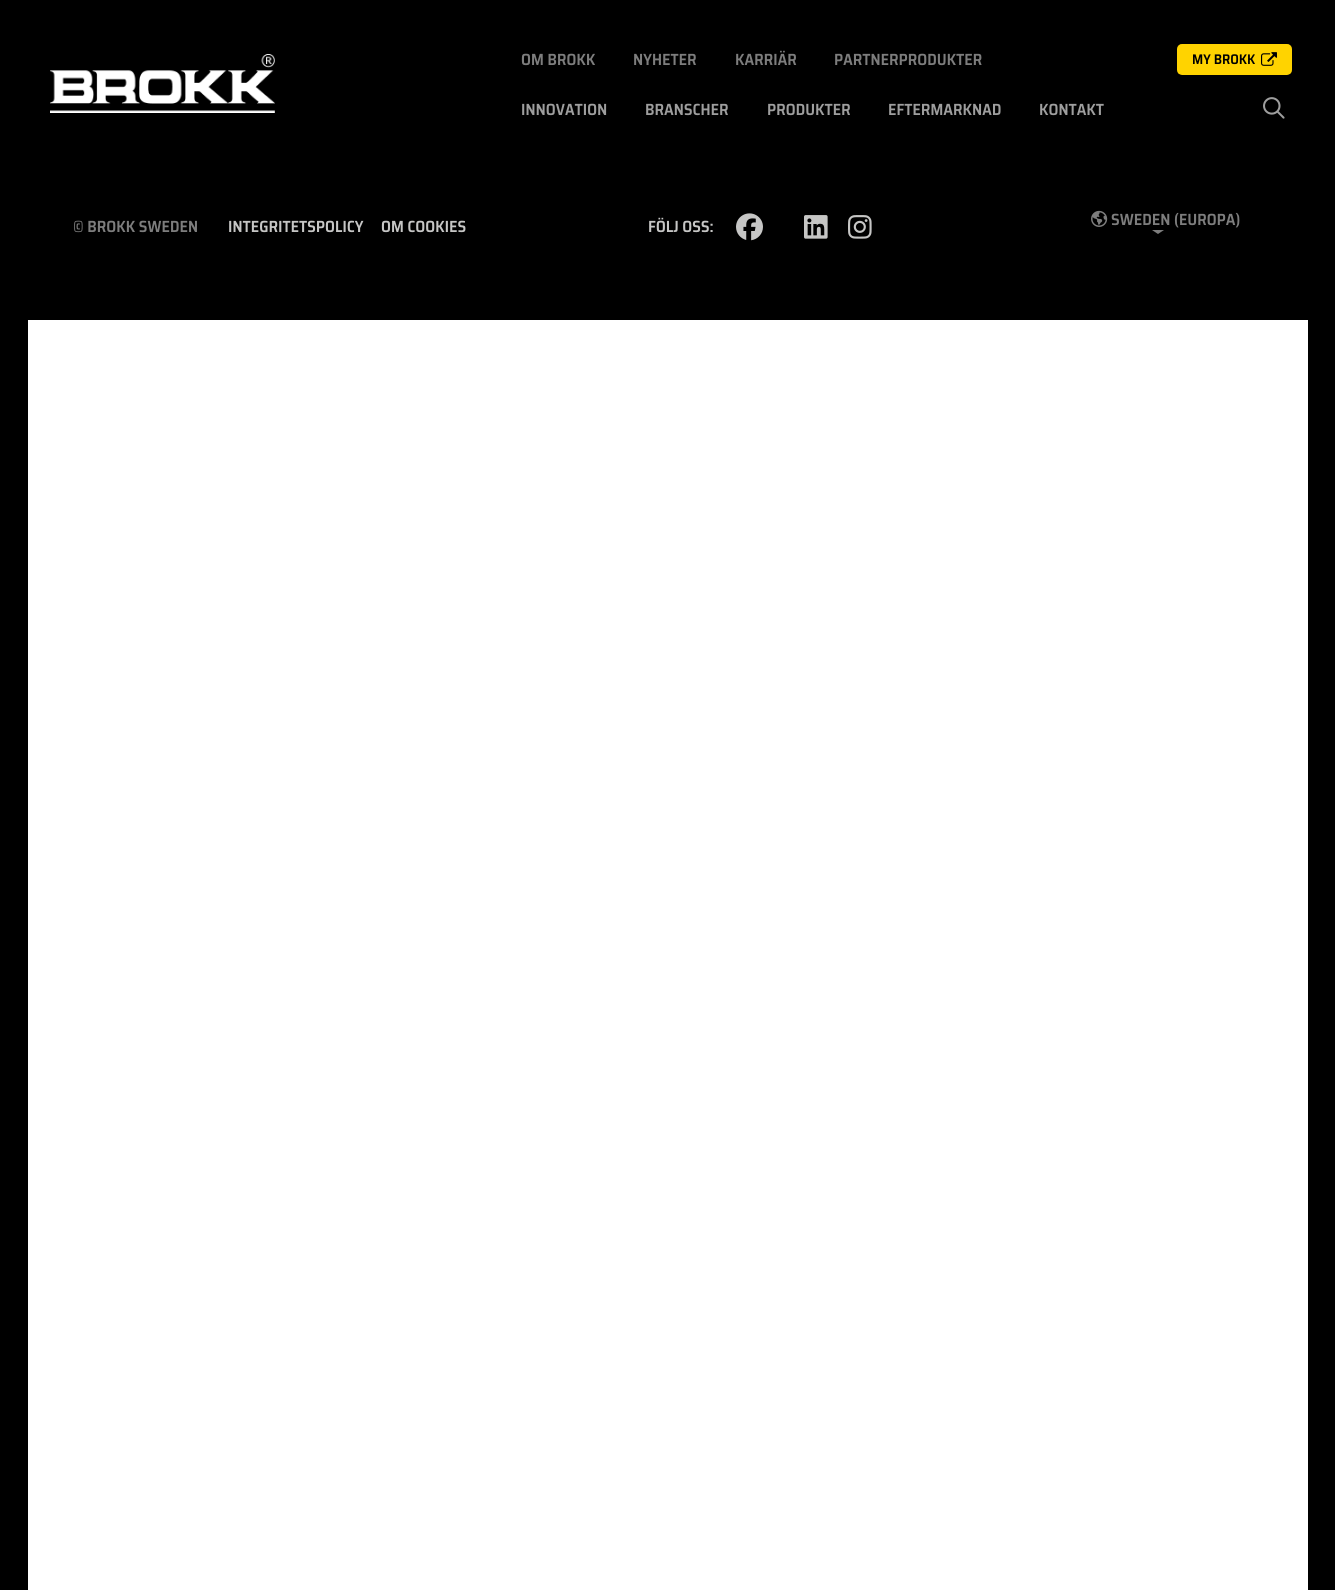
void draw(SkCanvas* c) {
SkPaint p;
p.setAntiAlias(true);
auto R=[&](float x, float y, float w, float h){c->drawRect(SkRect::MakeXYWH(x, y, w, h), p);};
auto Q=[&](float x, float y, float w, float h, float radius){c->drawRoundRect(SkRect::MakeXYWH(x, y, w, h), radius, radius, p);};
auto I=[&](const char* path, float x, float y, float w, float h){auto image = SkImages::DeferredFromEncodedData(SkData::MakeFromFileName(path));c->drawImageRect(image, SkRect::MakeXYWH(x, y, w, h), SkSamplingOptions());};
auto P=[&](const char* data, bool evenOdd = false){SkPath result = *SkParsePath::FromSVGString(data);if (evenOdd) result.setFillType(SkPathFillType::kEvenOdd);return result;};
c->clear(0xff000000);
p.setColor(0xffffffff);
R(28,320,1280,1270);
I("1.png",50,54,225,59);
I("2.png",521,53,74,13);
I("3.png",634,53,62,12);
I("4.png",736,50,61,15);
I("5.png",835,53,147,13);
p.setColor(0xffffd300);
Q(1177,44,115,31,5);
I("6.png",1193,54,62,11);
I("7.png",1261,52,16,14);
I("8.png",522,103,85,13);
I("9.png",646,103,82,13);
I("10.png",768,103,82,13);
I("11.png",889,103,112,12);
I("12.png",1040,103,64,13);
I("13.png",1263,97,22,22);
I("14.png",74,220,123,13);
I("15.png",229,220,135,13);
I("16.png",381,220,85,13);
I("17.png",649,217,64,16);
I("18.png",736,213,27,28);
I("19.png",804,215,24,24);
I("20.png",848,215,24,24);
I("21.png",1091,210,17,17);
I("22.png",1111,212,129,16);
p.setColor(0xff7d7d7d);
c->drawPath(P("M1152 230h12l-6 4z"),p);
}
